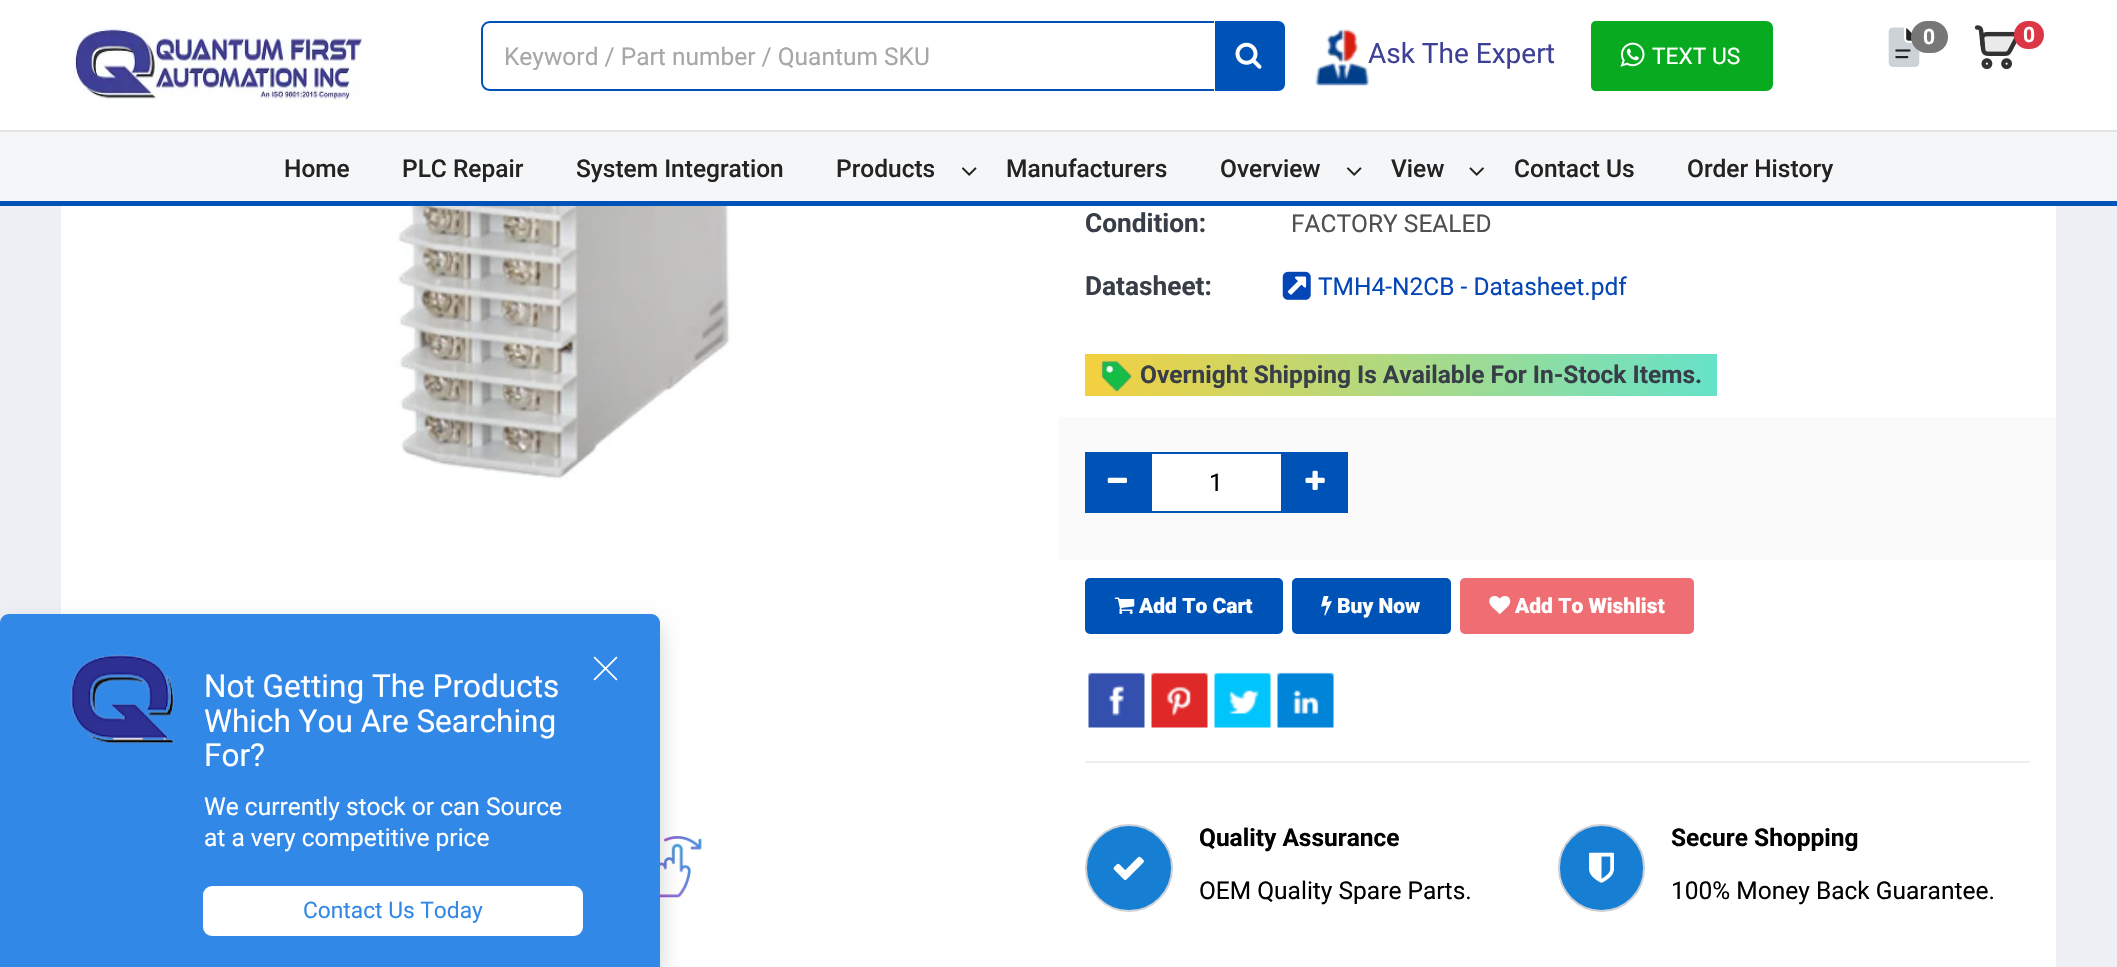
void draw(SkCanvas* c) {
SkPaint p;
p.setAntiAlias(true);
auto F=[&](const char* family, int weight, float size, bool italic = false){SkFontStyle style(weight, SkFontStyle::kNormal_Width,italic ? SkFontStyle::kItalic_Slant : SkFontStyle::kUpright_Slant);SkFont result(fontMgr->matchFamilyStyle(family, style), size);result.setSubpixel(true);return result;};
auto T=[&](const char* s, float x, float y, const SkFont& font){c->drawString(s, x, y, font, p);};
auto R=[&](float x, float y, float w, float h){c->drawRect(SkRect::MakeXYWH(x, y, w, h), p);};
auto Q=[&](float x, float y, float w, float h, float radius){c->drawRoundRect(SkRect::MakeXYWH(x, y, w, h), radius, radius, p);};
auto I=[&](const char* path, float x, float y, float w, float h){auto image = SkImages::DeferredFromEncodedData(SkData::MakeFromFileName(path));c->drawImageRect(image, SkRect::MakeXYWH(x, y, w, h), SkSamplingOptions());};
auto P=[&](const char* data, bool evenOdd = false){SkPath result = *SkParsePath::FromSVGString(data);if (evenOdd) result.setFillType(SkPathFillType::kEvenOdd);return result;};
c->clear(0xffeef0f5);
p.setColor(0xff0053b6);
R(0,201,2117,5);
p.setColor(0xffffffff);
R(0,0,2117,130);
I("1.png",73,27,289,78);
p.setColor(0xff0053b6);
c->drawPath(P("M490 21h724v70h-724c-5 0-9-4-9-9v-52c0-5 4-9 9-9zm0 2h724v66h-724c-4 0-7-3-7-7v-52c0-4 3-7 7-7z",true),p);
c->save();
c->clipRect(SkRect::MakeXYWH(504,42,690,28));
auto f1 = F("Roboto",400,24.5);
p.setColor(0xffa6a7a8);
T("Keyword / Part number / Quantum SKU",504,65,f1);
c->restore();
p.setColor(0xff0053b6);
c->drawPath(P("M1215 21h63c4 0 7 3 7 7v56c0 4-3 7-7 7h-63z"),p);
I("2.png",1235,42,27,27);
I("3.png",1315,29,54,57);
auto f2 = F("Roboto",400,28);
p.setColor(0xff3e4095);
T("Ask The Expert",1368,63,f2);
p.setColor(0xff08aa1f);
c->drawPath(P("M1596 21h170c4 0 7 3 7 7v56c0 4-3 7-7 7h-170c-3 0-5-2-5-5v-60c0-3 2-5 5-5z"),p);
I("4.png",1620,42,25,25);
auto f3 = F("Roboto",400,22.75);
p.setColor(0xffffffff);
T("TEXT US",1652,64,f3);
I("5.png",1888,27,32,40);
p.setColor(0xff777777);
Q(1911,21,37,32,16);
auto f4 = F("Roboto",700,21);
p.setColor(0xffffffff);
T("0",1923,44,f4);
I("6.png",1974,25,43,45);
p.setColor(0xffdc3545);
Q(2014,21,30,28,14);
p.setColor(0xffffffff);
T("0",2023,42,f4);
p.setColor(0xfff5f6f7);
R(0,132,2117,69);
p.setColor(0xffe4e4e4);
R(0,130,2117,2);
auto f5 = F("Roboto",500,24.5);
p.setColor(0xff232323);
T("Home",284,177,f5);
T("PLC Repair",402,177,f5);
T("System Integration",576,177,f5);
T("Products",836,177,f5);
I("7.png",961,167,16,9);
T("Manufacturers",1006,177,f5);
T("Overview",1220,177,f5);
I("7.png",1346,167,16,9);
T("View",1391,177,f5);
I("8.png",1469,167,15,9);
T("Contact Us",1514,177,f5);
T("Order History",1687,177,f5);
p.setColor(0xffffffff);
R(61,206,1995,761);
I("12.png",660,836,42,62);
p.setColor(0x2e000000);
p.setMaskFilter(SkMaskFilter::MakeBlur(kNormal_SkBlurStyle, 10.5));
c->drawRoundRect(SkRect::MakeXYWH(0,625,660,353),9,9,p);
p.setMaskFilter(nullptr);
p.setColor(0xff3288e6);
c->drawPath(P("M9 614h642c5 0 9 4 9 9v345h-660v-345c0-5 4-9 9-9z"),p);
I("9.png",593,656,25,25);
I("10.png",70,654,104,90);
auto f6 = F("Roboto",400,31.5);
p.setColor(0xffffffff);
T("Not Getting The Products",204,697,f6);
T("Which You Are Searching",204,732,f6);
T("For?",204,766,f6);
T("We currently stock or can Source",204,815,f1);
T("at a very competitive price",204,846,f1);
Q(203,886,380,50,9);
p.setColor(0xff3288e6);
T("Contact Us Today",303,918,f3);
I("11.png",388,206,343,274);
auto f7 = F("Roboto",700,26.25);
p.setColor(0xff383e47);
T("Condition:",1085,232,f7);
p.setColor(0xff505050);
T("FACTORY SEALED",1291,232,f1);
p.setColor(0xff383e47);
T("Datasheet:",1085,295,f7);
I("13.png",1282,271,29,29);
p.setColor(0xff0446b6);
T("TMH4-N2CB - Datasheet.pdf",1318,295,f1);
{
const SkColor colors[] = {0xff66e2c9,0xfff4d03f};
const float stops[] = {0,1};
const SkPoint ends[] = {{1717,375}, {1085,375}};
p.setShader(SkGradientShader::MakeLinear(ends, colors, stops, 2, SkTileMode::kClamp));
p.setAlpha(255);
}
R(1085,354,632,42);
I("14.png",1101,361,31,31);
auto f8 = F("Roboto",700,24.5);
p.setShader(nullptr);
p.setColor(0xff383e47);
T("Overnight Shipping Is Available For In-Stock Items.",1140,383,f8);
p.setColor(0xfffafafa);
R(1059,417,997,143);
p.setColor(0xff0053b6);
R(1085,452,65,61);
I("15.png",1107,477,20,6);
p.setColor(0xffffffff);
c->drawRect(SkRect::MakeXYWH(1151,453,131,59),p);
p.setStroke(true);
p.setStrokeWidth(2);
p.setColor(0xff0053b6);
c->drawRect(SkRect::MakeXYWH(1151,453,131,59),p);
p.setStroke(false);
p.setColor(0xff000000);
T("1",1209,491,f1);
p.setColor(0xff0053b6);
R(1283,452,65,61);
I("16.png",1305,470,20,20);
c->drawRoundRect(SkRect::MakeXYWH(1086,579,196,54),4,4,p);
p.setStroke(true);
c->drawRoundRect(SkRect::MakeXYWH(1086,579,196,54),4,4,p);
I("17.png",1114,597,21,17);
auto f9 = F("Roboto",900,21);
p.setStroke(false);
p.setColor(0xffffffff);
T("Add To Cart",1139,613,f9);
p.setColor(0xff0053b6);
c->drawRoundRect(SkRect::MakeXYWH(1293,579,157,54),4,4,p);
p.setStroke(true);
c->drawRoundRect(SkRect::MakeXYWH(1293,579,157,54),4,4,p);
I("18.png",1321,596,11,20);
p.setStroke(false);
p.setColor(0xffffffff);
T("Buy Now",1337,613,f9);
p.setColor(0xffee6e73);
c->drawRoundRect(SkRect::MakeXYWH(1461,579,232,54),4,4,p);
p.setStroke(true);
c->drawRoundRect(SkRect::MakeXYWH(1461,579,232,54),4,4,p);
I("19.png",1489,596,22,18);
p.setStroke(false);
p.setColor(0xffffffff);
T("Add To Wishlist",1515,613,f9);
I("20.png",1088,672,57,56);
I("21.png",1151,672,57,56);
I("22.png",1214,672,57,56);
I("23.png",1277,672,57,56);
p.setColor(0xffefefef);
R(1085,761,945,2);
p.setColor(0xff167fd3);
c->drawCircle(1129,868,43,p);
p.setStroke(true);
p.setColor(0xffcdd0d7);
c->drawCircle(1129,868,43,p);
I("24.png",1113,856,31,24);
p.setStroke(false);
p.setColor(0xff000000);
T("Quality Assurance",1199,846,f8);
T("OEM Quality Spare Parts.",1199,899,f1);
p.setColor(0xff167fd3);
c->drawRoundRect(SkRect::MakeXYWH(1559,825,85,86),42.5,42.5,p);
p.setStroke(true);
p.setColor(0xffcdd0d7);
c->drawRoundRect(SkRect::MakeXYWH(1559,825,85,86),42.5,42.5,p);
I("25.png",1589,852,25,31);
p.setStroke(false);
p.setColor(0xff000000);
T("Secure Shopping",1671,846,f8);
T("100% Money Back Guarantee.",1671,899,f1);
}
